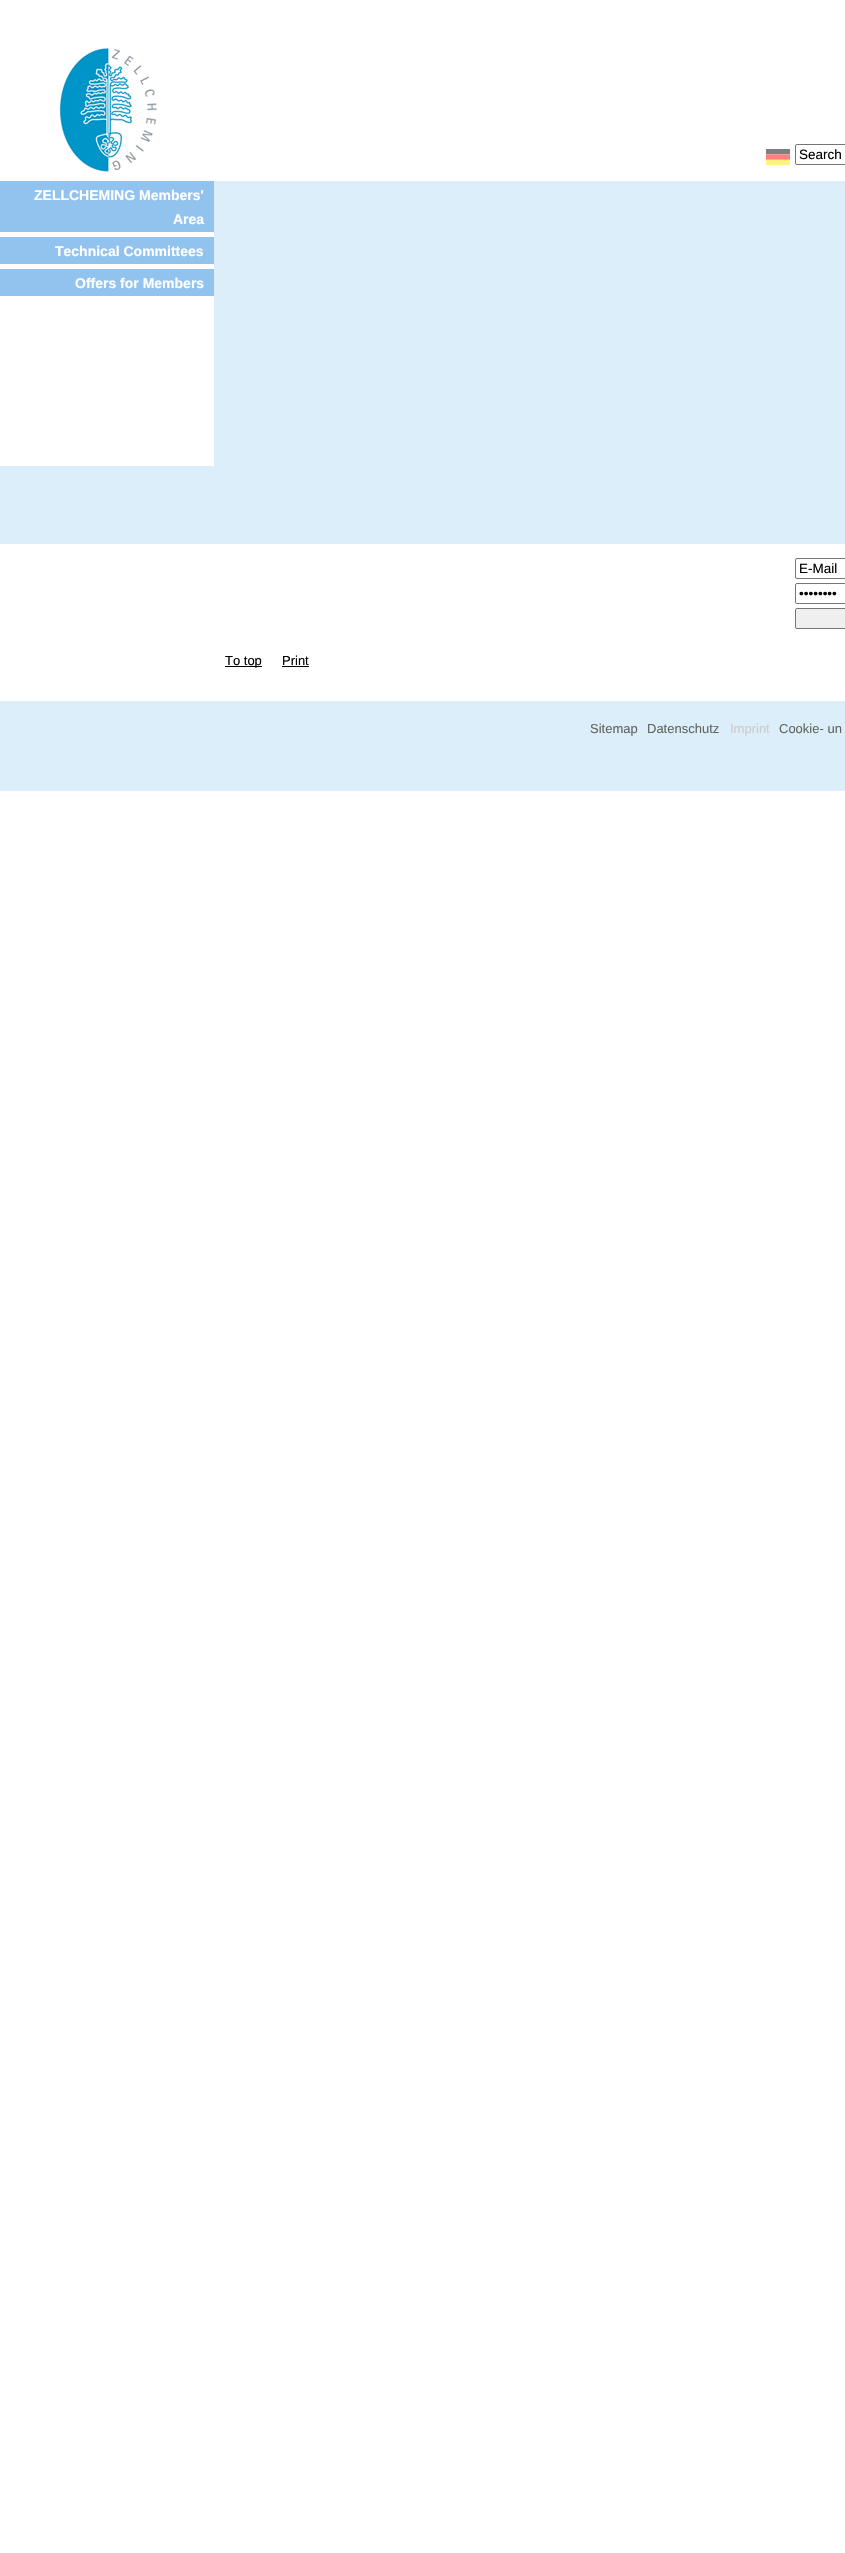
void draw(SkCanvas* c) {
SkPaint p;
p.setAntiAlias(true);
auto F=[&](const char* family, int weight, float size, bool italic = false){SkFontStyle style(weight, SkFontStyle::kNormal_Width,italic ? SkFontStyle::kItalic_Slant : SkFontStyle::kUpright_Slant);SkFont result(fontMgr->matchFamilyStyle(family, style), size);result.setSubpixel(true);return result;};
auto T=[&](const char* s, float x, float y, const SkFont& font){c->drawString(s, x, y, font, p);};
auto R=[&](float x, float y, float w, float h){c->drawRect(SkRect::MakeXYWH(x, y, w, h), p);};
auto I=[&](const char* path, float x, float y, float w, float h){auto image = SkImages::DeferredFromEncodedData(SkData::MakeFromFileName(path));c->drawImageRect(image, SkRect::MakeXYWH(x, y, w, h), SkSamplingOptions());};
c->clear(0xffffffff);
p.setColor(0xffdbeef9);
R(0,396,845,148);
I("1.png",59,48,98,124);
I("2.png",766,149,24,16);
p.setStroke(true);
p.setStrokeWidth(1);
p.setColor(0xff767676);
c->drawRoundRect(SkRect::MakeXYWH(795.5,144.5,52,20),1.5,1.5,p);
auto f1 = F("Liberation Sans",400,13.5);
p.setStroke(false);
p.setColor(0xff000000);
T("Search",799,159,f1);
p.setColor(0xffffffff);
R(0,396,214,70);
p.setColor(0xff92c3ee);
R(0,181,214,51);
auto f2 = F("Liberation Sans",700,14);
p.setColor(0xffffffff);
T("ZELLCHEMING Members'",34,200,f2);
T("Area",173,224,f2);
p.setColor(0xff92c3ee);
R(0,237,214,27);
p.setColor(0xffffffff);
T("Technical Committees",55,256,f2);
p.setColor(0xff92c3ee);
R(0,269,214,27);
p.setColor(0xffffffff);
T("Offers for Members",75,288,f2);
p.setColor(0xffdbeef9);
R(214,181,631,215);
p.setStroke(true);
p.setColor(0xff767676);
c->drawRoundRect(SkRect::MakeXYWH(795.5,558.5,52,20),1.5,1.5,p);
p.setStroke(false);
p.setColor(0xff000000);
T("E-Mail",799,573,f1);
p.setStroke(true);
p.setColor(0xff767676);
c->drawRoundRect(SkRect::MakeXYWH(795.5,583.5,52,20),1.5,1.5,p);
p.setStroke(false);
p.setColor(0xff000000);
T("••••••••",799,598,f1);
p.setColor(0xffefefef);
c->drawRoundRect(SkRect::MakeXYWH(795.5,608.5,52,20),1.5,1.5,p);
p.setStroke(true);
p.setColor(0xff767676);
c->drawRoundRect(SkRect::MakeXYWH(795.5,608.5,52,20),1.5,1.5,p);
p.setStroke(false);
p.setColor(0xff000000);
R(225,666,37,1);
auto f3 = F("Liberation Sans",400,13);
T("To top",225,665,f3);
T("Print",282,665,f3);
R(282,666,27,1);
p.setColor(0xffdbeef9);
R(0,701,845,90);
p.setColor(0xff62645f);
T("Sitemap",590,733,f3);
T("Datenschutz",647,733,f3);
p.setColor(0xffcccccc);
T("Imprint",730,733,f3);
p.setColor(0xff62645f);
T("Cookie- un",779,733,f3);
}
